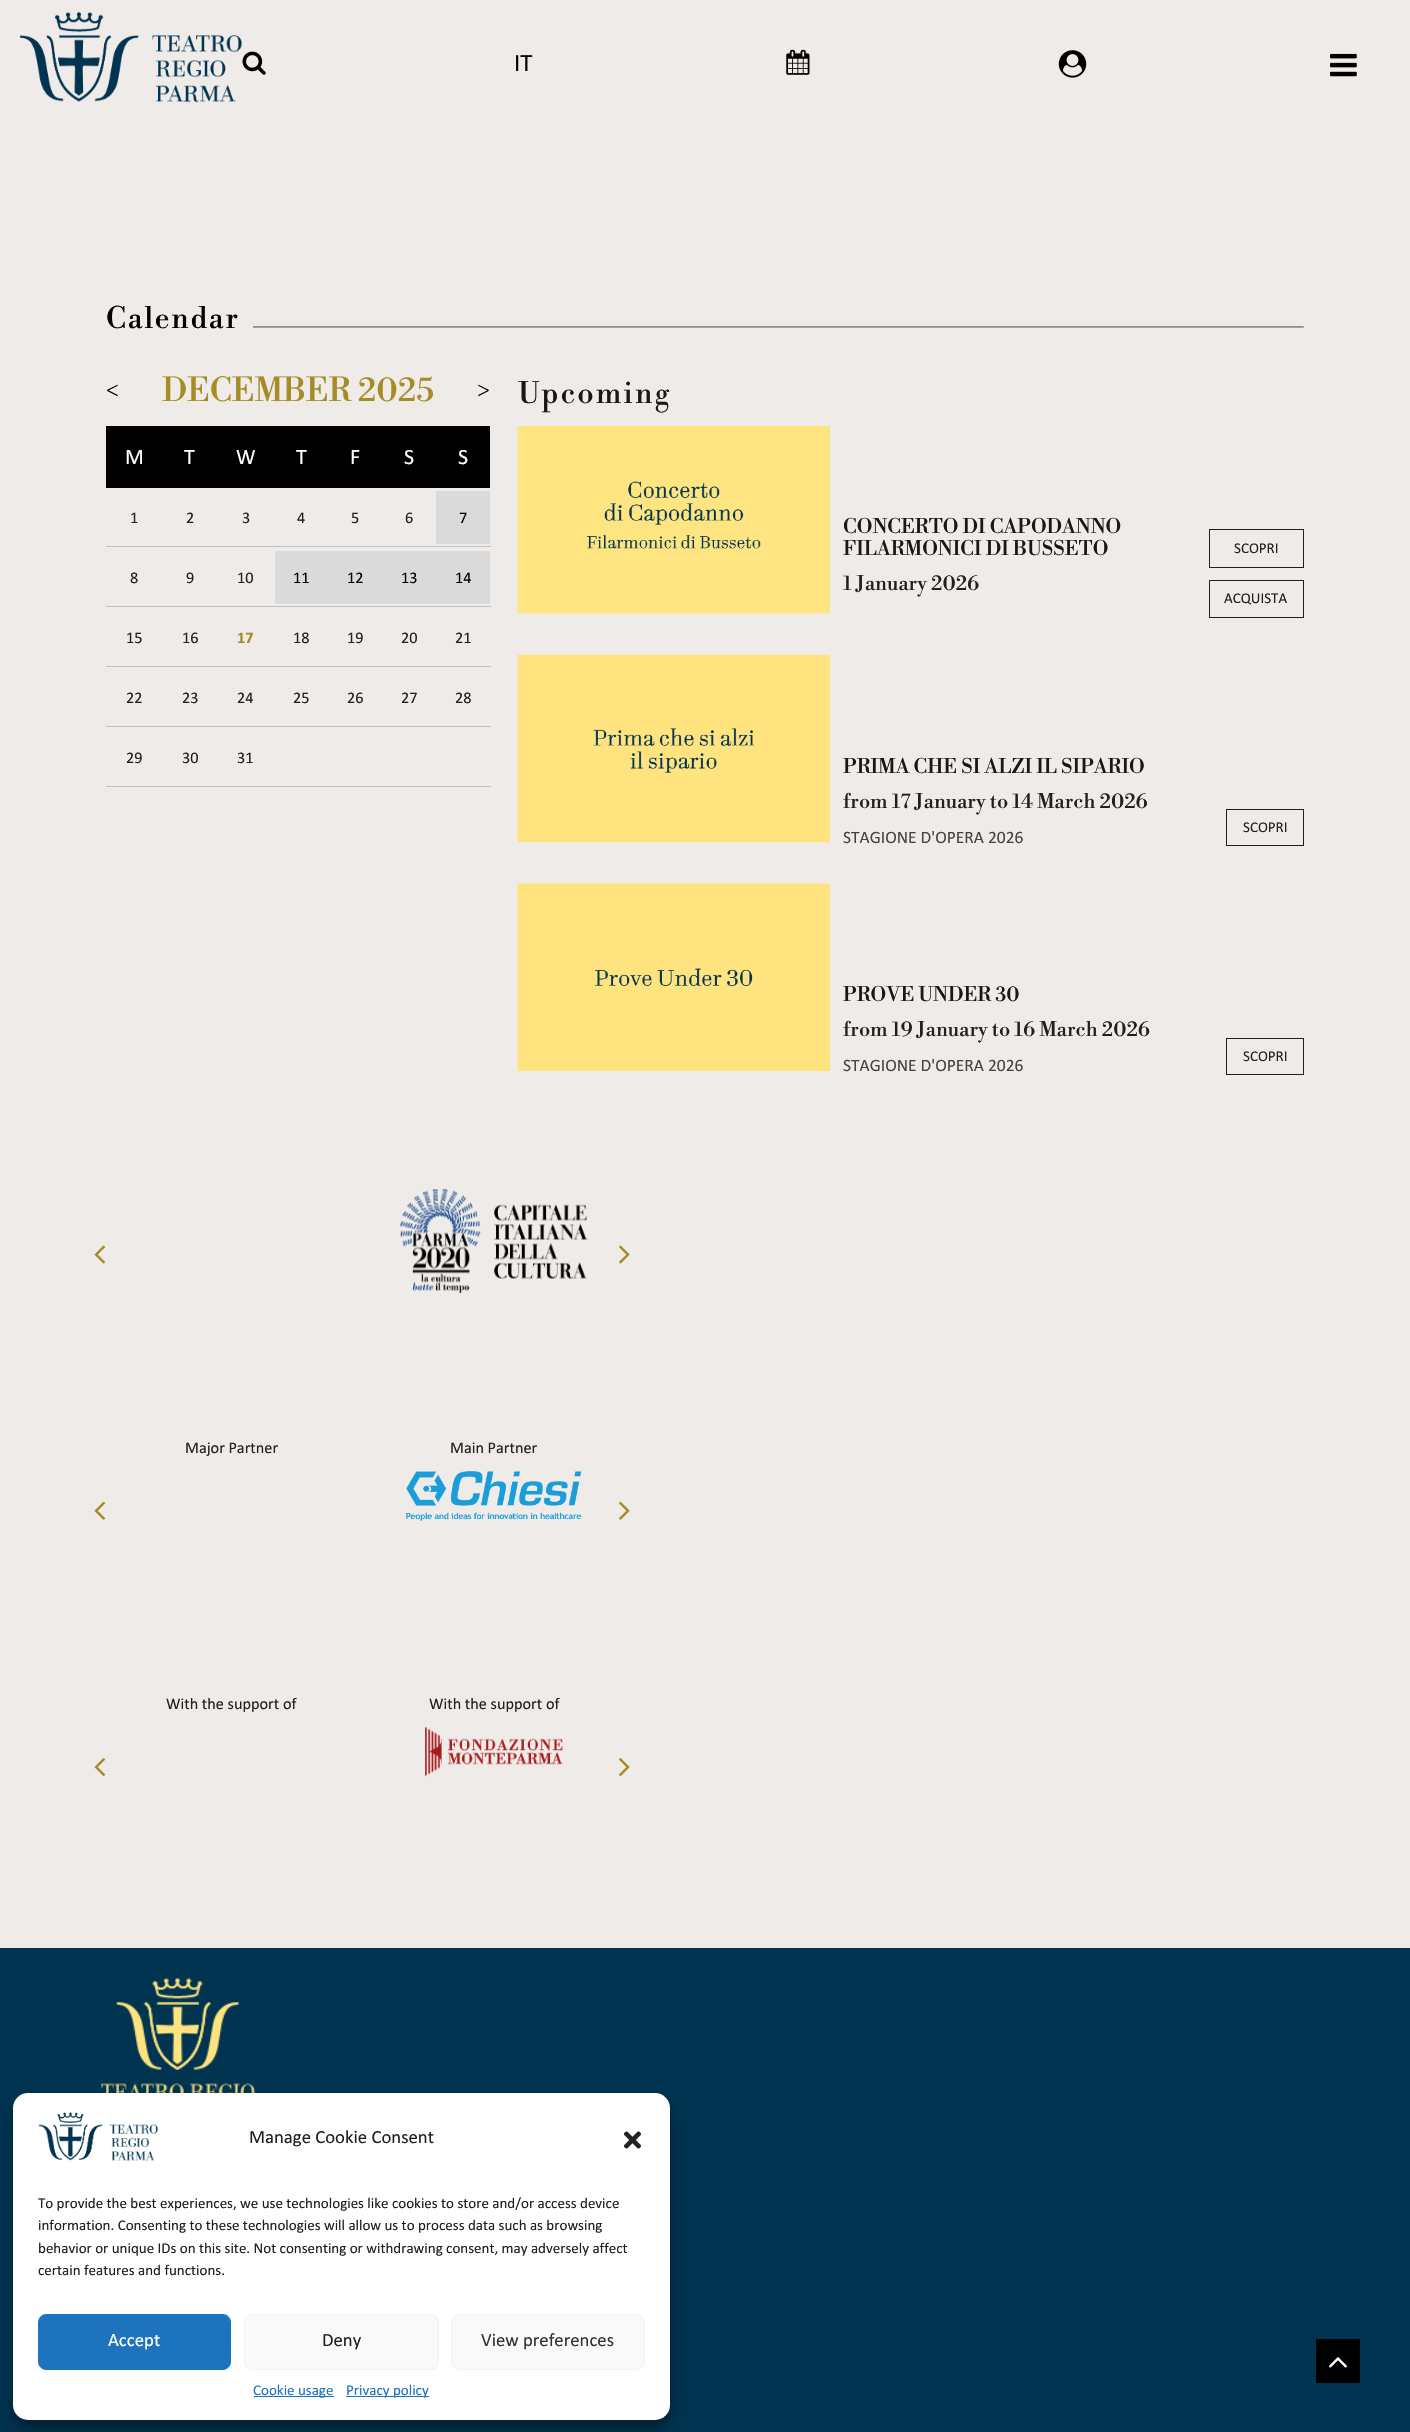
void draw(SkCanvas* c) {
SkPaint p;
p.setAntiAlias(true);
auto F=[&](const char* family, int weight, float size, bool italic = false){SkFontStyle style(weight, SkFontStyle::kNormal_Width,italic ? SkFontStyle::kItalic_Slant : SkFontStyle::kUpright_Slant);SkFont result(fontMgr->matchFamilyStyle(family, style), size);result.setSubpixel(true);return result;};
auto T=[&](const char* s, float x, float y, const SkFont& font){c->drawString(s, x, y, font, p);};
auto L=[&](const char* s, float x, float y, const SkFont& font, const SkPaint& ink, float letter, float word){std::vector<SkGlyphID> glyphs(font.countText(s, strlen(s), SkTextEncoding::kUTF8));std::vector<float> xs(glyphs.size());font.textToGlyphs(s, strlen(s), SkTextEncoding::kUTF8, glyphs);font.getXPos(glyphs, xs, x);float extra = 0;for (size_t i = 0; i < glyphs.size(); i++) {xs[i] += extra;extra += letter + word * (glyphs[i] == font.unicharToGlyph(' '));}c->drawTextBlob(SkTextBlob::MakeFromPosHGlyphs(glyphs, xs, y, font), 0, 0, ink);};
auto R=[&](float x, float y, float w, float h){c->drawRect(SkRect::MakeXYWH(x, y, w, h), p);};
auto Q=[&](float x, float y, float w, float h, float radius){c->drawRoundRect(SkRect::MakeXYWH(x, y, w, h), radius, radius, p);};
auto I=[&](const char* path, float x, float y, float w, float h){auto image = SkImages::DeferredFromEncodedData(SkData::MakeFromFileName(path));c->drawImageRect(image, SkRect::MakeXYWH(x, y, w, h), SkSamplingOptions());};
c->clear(0xffefebe8);
I("1.png",19,12,224,91);
I("2.png",242,51,24,24);
auto f1 = F("Calibri",400,25);
p.setColor(0xff000000);
T("IT",514,71,f1);
I("3.png",786,49,24,26);
I("4.png",1058,50,29,28);
I("5.png",1330,53,27,24);
I("6.png",253,326,1051,2);
auto f2 = F("Libre Bodoni",400,29.25);
L("Calendar",106,328,f2,p,1.75,0);
auto f3 = F("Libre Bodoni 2",400,22);
T("<",106,398,f3);
auto f4 = F("Libre Bodoni 2",400,32.5);
p.setColor(0xffa58c24);
T("DECEMBER 2025",162,401,f4);
p.setColor(0xff000000);
T(">",477,398,f3);
R(106,426,384,62);
auto f5 = F("Calibri",400,22);
p.setColor(0xffffffff);
T("M",125,464,f5);
T("T",184,464,f5);
T("W",236,464,f5);
T("T",296,464,f5);
T("F",350,464,f5);
T("S",404,464,f5);
T("S",458,464,f5);
p.setColor(0xffc1c1c1);
R(106,546,385,1);
auto f6 = F("Calibri",400,16.25);
p.setColor(0xff202020);
T("1",130,523,f6);
T("2",186,523,f6);
T("3",242,523,f6);
T("4",297,523,f6);
T("5",351,523,f6);
T("6",405,523,f6);
p.setColor(0xffdadada);
R(436,491,54,53);
p.setColor(0xff000000);
T("7",459,523,f6);
p.setColor(0xffc1c1c1);
R(106,606,385,1);
p.setColor(0xff202020);
T("8",130,583,f6);
T("9",186,583,f6);
T("10",237,583,f6);
p.setColor(0xffdadada);
R(275,551,215,53);
p.setColor(0xff000000);
T("11",293,583,f6);
T("12",347,583,f6);
T("13",401,583,f6);
T("14",455,583,f6);
p.setColor(0xffc1c1c1);
R(106,666,385,1);
p.setColor(0xff202020);
T("15",126,643,f6);
T("16",182,643,f6);
auto f7 = F("Calibri",700,16.25);
p.setColor(0xffa58c24);
T("17",237,643,f7);
p.setColor(0xff202020);
T("18",293,643,f6);
T("19",347,643,f6);
T("20",401,643,f6);
T("21",455,643,f6);
p.setColor(0xffc1c1c1);
R(106,726,385,1);
p.setColor(0xff202020);
T("22",126,703,f6);
T("23",182,703,f6);
T("24",237,703,f6);
T("25",293,703,f6);
T("26",347,703,f6);
T("27",401,703,f6);
T("28",455,703,f6);
p.setColor(0xffc1c1c1);
R(106,786,385,1);
p.setColor(0xff202020);
T("29",126,763,f6);
T("30",182,763,f6);
T("31",237,763,f6);
p.setColor(0xff181818);
L("Upcoming",518,403,f2,p,2,0);
I("7.png",517,426,313,188);
auto f8 = F("Libre Bodoni",400,20);
T("CONCERTO DI CAPODANNO",843,533,f8);
T("FILARMONICI DI BUSSETO",843,555,f8);
p.setColor(0xff202020);
T("1 January 2026",843,590,f8);
p.setStroke(true);
p.setStrokeWidth(1);
c->drawRect(SkRect::MakeXYWH(1209.5,529.5,94,38),p);
auto f9 = F("Calibri",400,15);
p.setStroke(false);
T("SCOPRI",1234,553,f9);
p.setStroke(true);
c->drawRect(SkRect::MakeXYWH(1209.5,580.5,94,37),p);
p.setStroke(false);
T("ACQUISTA",1224,603,f9);
I("8.png",517,654,313,189);
p.setColor(0xff181818);
T("PRIMA CHE SI ALZI IL SIPARIO",843,773,f8);
p.setColor(0xff202020);
T("from 17 January to 14 March 2026",843,808,f8);
auto f10 = F("Calibri",400,17.5);
p.setColor(0xff444444);
T("STAGIONE D'OPERA 2026",843,843,f10);
p.setStroke(true);
p.setColor(0xff202020);
c->drawRect(SkRect::MakeXYWH(1226.5,809.5,77,36),p);
p.setStroke(false);
T("SCOPRI",1243,832,f9);
I("9.png",517,883,313,188);
p.setColor(0xff181818);
T("PROVE UNDER 30",843,1001,f8);
p.setColor(0xff202020);
T("from 19 January to 16 March 2026",843,1036,f8);
p.setColor(0xff444444);
T("STAGIONE D'OPERA 2026",843,1071,f10);
p.setStroke(true);
p.setColor(0xff202020);
c->drawRect(SkRect::MakeXYWH(1226.5,1038.5,77,36),p);
p.setStroke(false);
T("SCOPRI",1243,1061,f9);
I("10.png",400,1189,188,104);
I("11.png",94,1245,12,19);
I("12.png",619,1245,11,19);
T("Major Partner",185,1453,f6);
T("Main Partner",450,1453,f6);
I("13.png",406,1471,176,50);
I("14.png",94,1501,12,19);
I("15.png",619,1501,11,19);
T("With the support of",166,1709,f6);
T("With the support of",429,1709,f6);
I("16.png",425,1727,138,50);
I("17.png",94,1758,12,19);
I("18.png",619,1758,11,19);
p.setColor(0xff003451);
R(0,1948,1410,484);
I("19.png",101,1978,155,115);
p.setColor(0x3b000000);
p.setMaskFilter(SkMaskFilter::MakeBlur(kNormal_SkBlurStyle, 4));
c->drawRoundRect(SkRect::MakeXYWH(13,2100,657,328),15,15,p);
p.setMaskFilter(nullptr);
p.setColor(0x30000000);
p.setMaskFilter(SkMaskFilter::MakeBlur(kNormal_SkBlurStyle, 12.5));
c->drawRoundRect(SkRect::MakeXYWH(13,2105,657,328),15,15,p);
p.setMaskFilter(nullptr);
p.setColor(0xffffffff);
Q(13,2093,657,327,15);
I("20.png",38,2112,121,49);
auto f11 = F("Calibri",400,18.75);
p.setColor(0xff202020);
T("Manage Cookie Consent",249,2143,f11);
I("21.png",623,2131,19,18);
T("To provide the best experiences, we use technologies like cookies to store and/or access device",38,2208,f9);
T("information. Consenting to these technologies will allow us to process data such as browsing",38,2230,f9);
T("behavior or unique IDs on this site. Not consenting or withdrawing consent, may adversely affect",38,2253,f9);
T("certain features and functions.",38,2275,f9);
p.setColor(0xff1e73be);
c->drawRoundRect(SkRect::MakeXYWH(38.5,2314.5,192,55),7.5,7.5,p);
p.setStroke(true);
c->drawRoundRect(SkRect::MakeXYWH(38.5,2314.5,192,55),7.5,7.5,p);
p.setStroke(false);
p.setColor(0xffffffff);
T("Accept",108,2346,f11);
p.setColor(0xfff9f9f9);
c->drawRoundRect(SkRect::MakeXYWH(244.5,2314.5,194,55),7.5,7.5,p);
p.setStroke(true);
p.setColor(0xfff2f2f2);
c->drawRoundRect(SkRect::MakeXYWH(244.5,2314.5,194,55),7.5,7.5,p);
p.setStroke(false);
p.setColor(0xff202020);
T("Deny",322,2346,f11);
p.setColor(0xfff9f9f9);
c->drawRoundRect(SkRect::MakeXYWH(451.5,2314.5,193,55),7.5,7.5,p);
p.setStroke(true);
p.setColor(0xfff2f2f2);
c->drawRoundRect(SkRect::MakeXYWH(451.5,2314.5,193,55),7.5,7.5,p);
p.setStroke(false);
p.setColor(0xff333333);
T("View preferences",481,2346,f11);
p.setColor(0xff1e73be);
R(254,2396,80,1);
T("Cookie usage",253,2395,f9);
R(346,2396,83,1);
T("Privacy policy",346,2395,f9);
p.setColor(0xff000000);
R(1316,2339,44,44);
I("22.png",1329,2357,18,11);
}
